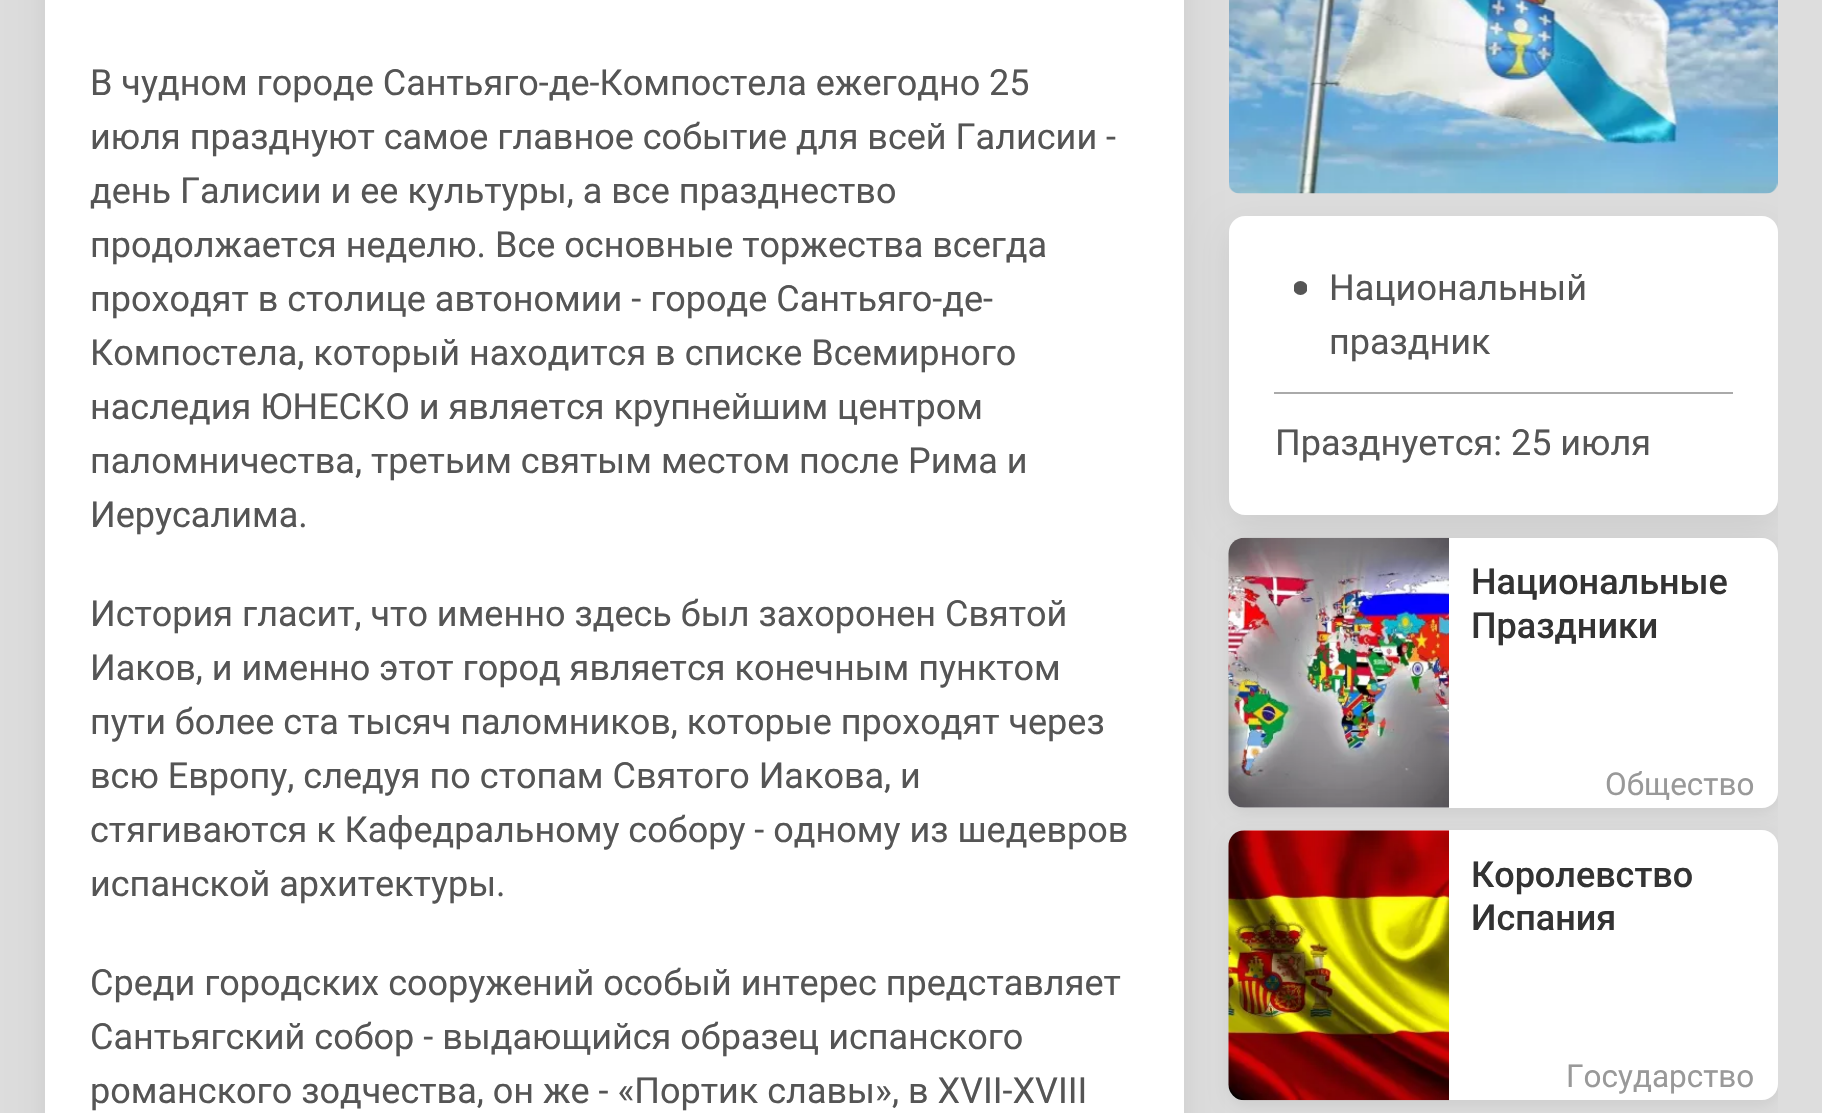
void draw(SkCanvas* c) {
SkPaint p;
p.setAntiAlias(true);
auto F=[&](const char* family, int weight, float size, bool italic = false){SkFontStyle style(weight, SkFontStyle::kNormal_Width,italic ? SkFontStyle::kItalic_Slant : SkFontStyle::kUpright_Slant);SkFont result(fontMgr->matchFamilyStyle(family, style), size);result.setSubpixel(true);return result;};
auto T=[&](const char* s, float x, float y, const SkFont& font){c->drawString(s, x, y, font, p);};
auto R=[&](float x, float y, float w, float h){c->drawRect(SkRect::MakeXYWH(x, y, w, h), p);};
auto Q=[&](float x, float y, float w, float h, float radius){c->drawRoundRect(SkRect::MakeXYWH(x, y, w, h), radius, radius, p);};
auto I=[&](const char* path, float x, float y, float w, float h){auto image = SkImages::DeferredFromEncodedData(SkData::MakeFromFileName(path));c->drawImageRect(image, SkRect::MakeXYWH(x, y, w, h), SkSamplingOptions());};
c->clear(0xffdddddd);
p.setColor(0x14000000);
p.setMaskFilter(SkMaskFilter::MakeBlur(kNormal_SkBlurStyle, 17));
c->drawRoundRect(SkRect::MakeXYWH(45,-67,1139,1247),16,16,p);
p.setMaskFilter(nullptr);
p.setColor(0xffffffff);
R(45,0,1139,1113);
auto f1 = F("Roboto",400,36);
p.setColor(0xff555555);
T("В чудном городе Сантьяго-де-Компостела ежегодно 25",90,95,f1);
T("июля празднуют самое главное событие для всей Галисии -",90,149,f1);
T("день Галисии и ее культуры, а все празднество",90,203,f1);
T("продолжается неделю. Все основные торжества всегда",90,257,f1);
T("проходят в столице автономии - городе Сантьяго-де-",90,311,f1);
T("Компостела, который находится в списке Всемирного",90,365,f1);
T("наследия ЮНЕСКО и является крупнейшим центром",90,419,f1);
T("паломничества, третьим святым местом после Рима и",90,473,f1);
T("Иерусалима.",90,527,f1);
T("История гласит, что именно здесь был захоронен Святой",90,626,f1);
T("Иаков, и именно этот город является конечным пунктом",90,680,f1);
T("пути более ста тысяч паломников, которые проходят через",90,734,f1);
T("всю Европу, следуя по стопам Святого Иакова, и",90,788,f1);
T("стягиваются к Кафедральному собору - одному из шедевров",90,842,f1);
T("испанской архитектуры.",90,896,f1);
T("Среди городских сооружений особый интерес представляет",90,995,f1);
T("Сантьягский собор - выдающийся образец испанского",90,1049,f1);
T("романского зодчества, он же - «Портик славы», в XVII-XVIII",90,1103,f1);
I("1.png",1229,0,549,194);
c->save();
c->clipRect(SkRect::MakeXYWH(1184,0,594,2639));
p.setColor(0x14000000);
p.setMaskFilter(SkMaskFilter::MakeBlur(kNormal_SkBlurStyle, 17));
c->drawRoundRect(SkRect::MakeXYWH(1229,227,549,300),16,16,p);
p.setMaskFilter(nullptr);
c->restore();
p.setColor(0xffffffff);
Q(1229,216,549,299,16);
c->save();
c->clipRect(SkRect::MakeXYWH(1294,281,13,14));
p.setColor(0xff555555);
c->drawCircle(1300.5,288,7,p);
c->restore();
T("Национальный",1329,300,f1);
T("праздник",1329,354,f1);
p.setColor(0xffaaaaaa);
R(1274,392,459,2);
p.setColor(0xff555555);
T("Празднуется: 25 июля",1275,455,f1);
c->save();
c->clipRect(SkRect::MakeXYWH(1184,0,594,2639));
p.setColor(0x14000000);
p.setMaskFilter(SkMaskFilter::MakeBlur(kNormal_SkBlurStyle, 9));
c->drawRoundRect(SkRect::MakeXYWH(1229,542,549,270),16,16,p);
p.setMaskFilter(nullptr);
c->restore();
p.setColor(0xffffffff);
Q(1229,538,549,270,16);
I("2.png",1228,537,221,271);
auto f2 = F("Roboto",500,36);
p.setColor(0xff333333);
T("Национальные",1471,594,f2);
T("Праздники",1471,638,f2);
auto f3 = F("Roboto",400,31.5);
p.setColor(0xff999999);
T("Общество",1605,795,f3);
c->save();
c->clipRect(SkRect::MakeXYWH(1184,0,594,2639));
p.setColor(0x14000000);
p.setMaskFilter(SkMaskFilter::MakeBlur(kNormal_SkBlurStyle, 9));
c->drawRoundRect(SkRect::MakeXYWH(1229,835,549,270),16,16,p);
p.setMaskFilter(nullptr);
c->restore();
p.setColor(0xffffffff);
Q(1229,830,549,270,16);
I("3.png",1228,830,221,271);
p.setColor(0xff333333);
T("Королевство",1471,887,f2);
T("Испания",1471,930,f2);
p.setColor(0xff999999);
T("Государство",1566,1087,f3);
}
